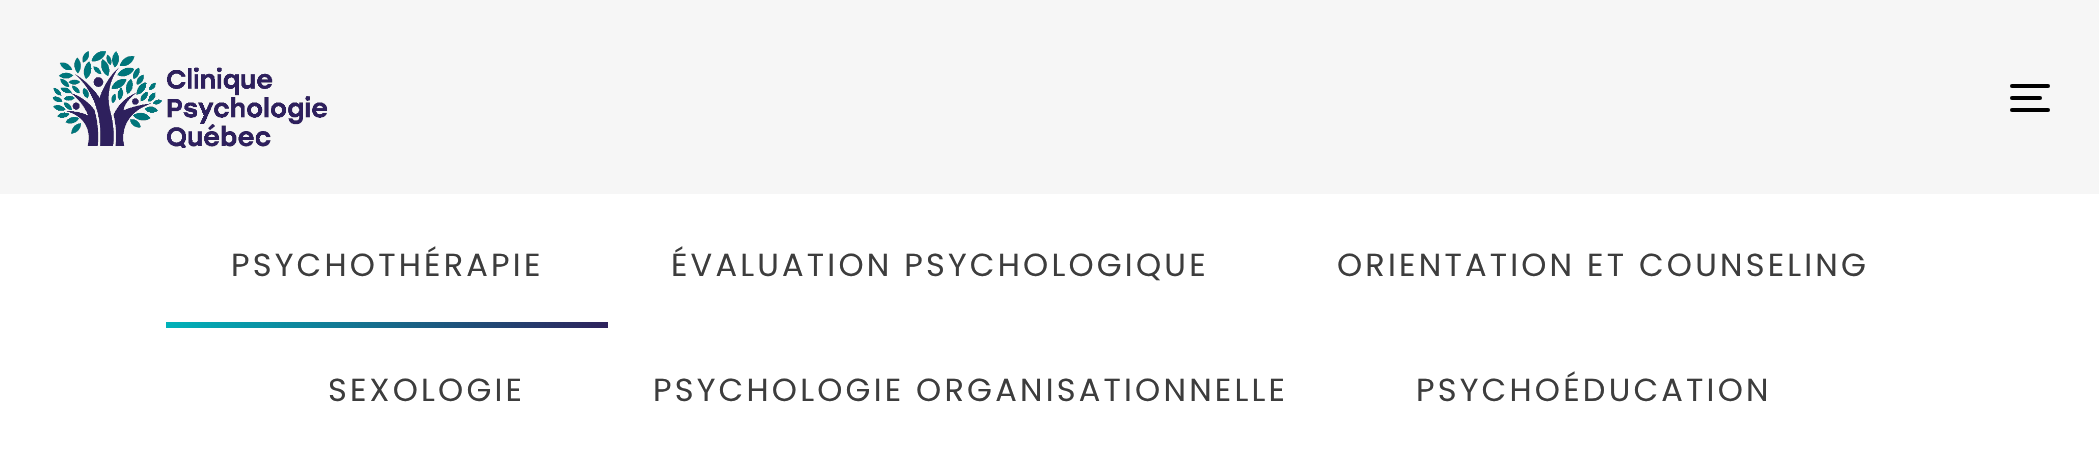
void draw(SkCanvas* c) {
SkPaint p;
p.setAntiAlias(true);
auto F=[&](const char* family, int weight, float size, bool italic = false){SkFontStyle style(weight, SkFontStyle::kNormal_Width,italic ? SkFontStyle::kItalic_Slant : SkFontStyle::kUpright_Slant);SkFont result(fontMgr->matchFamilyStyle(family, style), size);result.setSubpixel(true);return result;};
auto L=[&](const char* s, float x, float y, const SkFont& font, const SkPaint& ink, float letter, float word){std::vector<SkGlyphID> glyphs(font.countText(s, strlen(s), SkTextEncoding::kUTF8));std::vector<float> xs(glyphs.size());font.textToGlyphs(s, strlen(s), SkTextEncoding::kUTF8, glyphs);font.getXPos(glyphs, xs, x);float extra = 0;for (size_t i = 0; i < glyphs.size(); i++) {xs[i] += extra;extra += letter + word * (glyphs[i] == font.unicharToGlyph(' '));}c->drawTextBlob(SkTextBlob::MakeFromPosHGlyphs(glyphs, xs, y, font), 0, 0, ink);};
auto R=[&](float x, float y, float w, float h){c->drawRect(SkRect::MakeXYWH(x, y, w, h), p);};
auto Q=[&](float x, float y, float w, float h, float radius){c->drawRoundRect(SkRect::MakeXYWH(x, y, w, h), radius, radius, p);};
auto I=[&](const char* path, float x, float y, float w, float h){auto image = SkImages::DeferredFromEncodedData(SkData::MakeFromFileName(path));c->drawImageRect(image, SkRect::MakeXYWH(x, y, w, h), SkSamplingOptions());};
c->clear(0xffffffff);
p.setColor(0xfff6f6f6);
R(0,0,2099,194);
I("1.png",52,51,276,97);
p.setColor(0xff000000);
Q(2010,84,40,4,2);
Q(2010,96,32,4,2);
Q(2010,108,40,4,2);
auto f1 = F("Poppins",400,32);
p.setColor(0xff3d3d3d);
L("PSYCHOTHÉRAPIE",231,276,f1,p,3.2,0);
{
const SkColor colors[] = {0xff00b2b9,0xff2e225c};
const float stops[] = {0,1};
const SkPoint ends[] = {{166,325}, {608,325}};
p.setShader(SkGradientShader::MakeLinear(ends, colors, stops, 2, SkTileMode::kClamp));
p.setAlpha(255);
}
R(166,322,442,6);
p.setShader(nullptr);
p.setColor(0xff3d3d3d);
L("ÉVALUATION PSYCHOLOGIQUE",671,276,f1,p,3.2,0);
L("ORIENTATION ET COUNSELING",1337,276,f1,p,3.2,0);
L("SEXOLOGIE",328,401,f1,p,3.2,0);
L("PSYCHOLOGIE ORGANISATIONNELLE",653,401,f1,p,3.2,0);
L("PSYCHOÉDUCATION",1416,401,f1,p,3.2,0);
}
